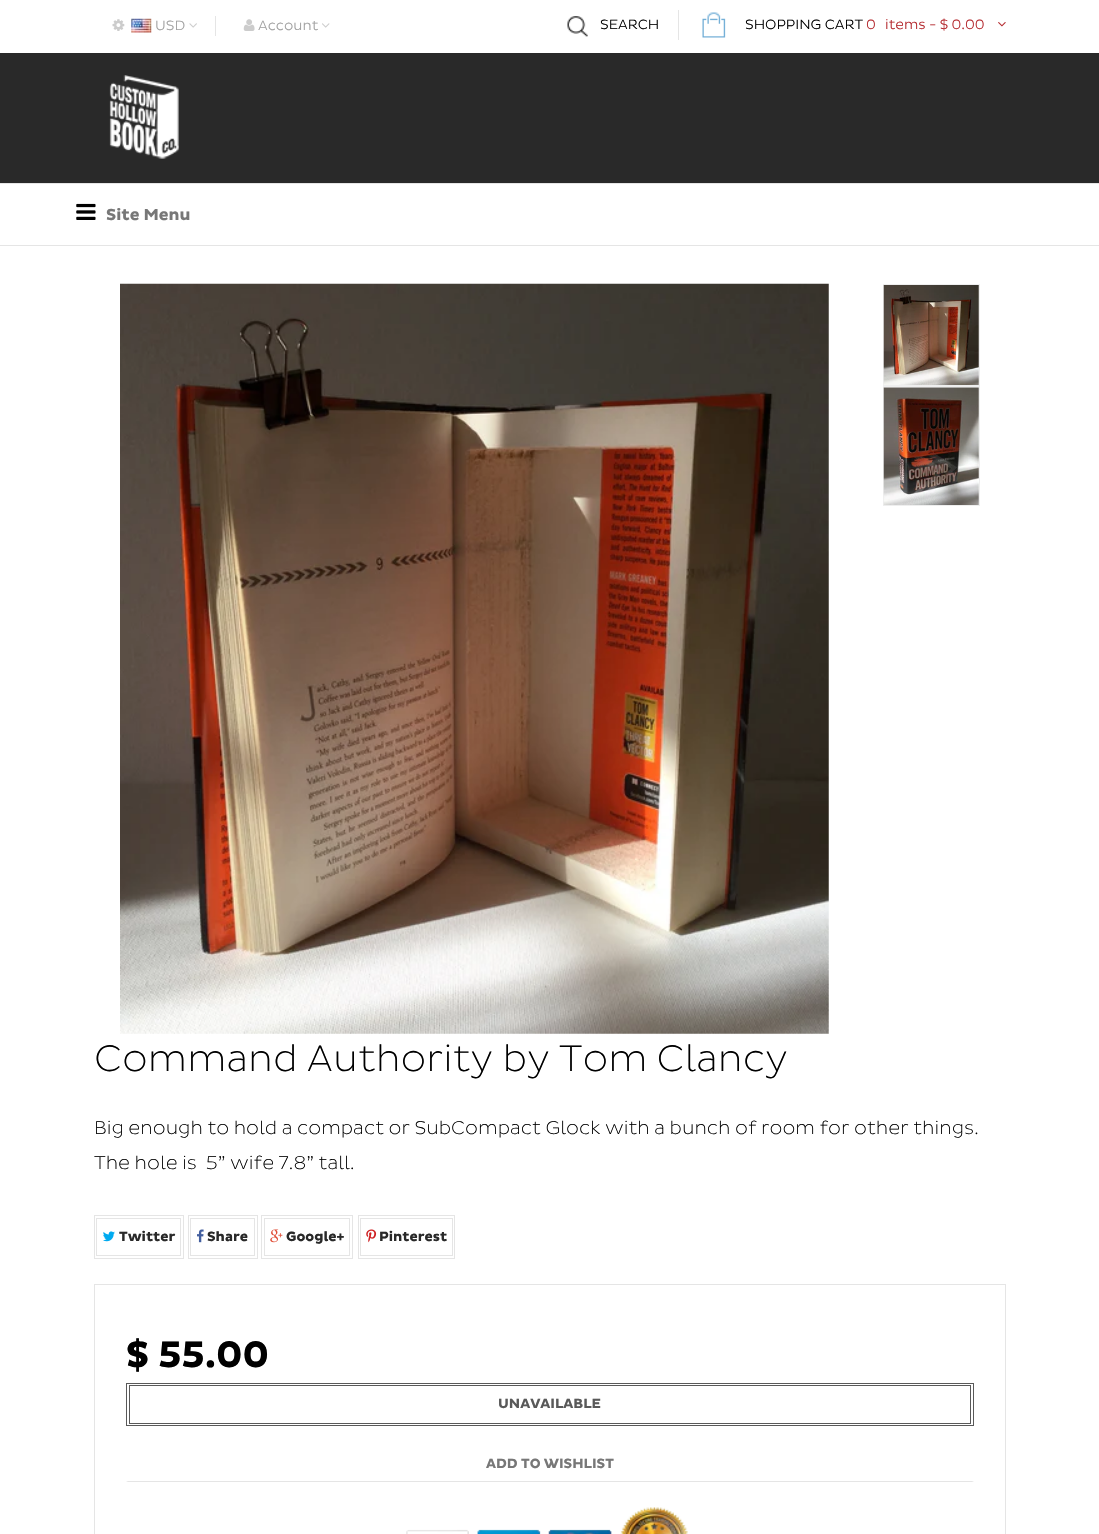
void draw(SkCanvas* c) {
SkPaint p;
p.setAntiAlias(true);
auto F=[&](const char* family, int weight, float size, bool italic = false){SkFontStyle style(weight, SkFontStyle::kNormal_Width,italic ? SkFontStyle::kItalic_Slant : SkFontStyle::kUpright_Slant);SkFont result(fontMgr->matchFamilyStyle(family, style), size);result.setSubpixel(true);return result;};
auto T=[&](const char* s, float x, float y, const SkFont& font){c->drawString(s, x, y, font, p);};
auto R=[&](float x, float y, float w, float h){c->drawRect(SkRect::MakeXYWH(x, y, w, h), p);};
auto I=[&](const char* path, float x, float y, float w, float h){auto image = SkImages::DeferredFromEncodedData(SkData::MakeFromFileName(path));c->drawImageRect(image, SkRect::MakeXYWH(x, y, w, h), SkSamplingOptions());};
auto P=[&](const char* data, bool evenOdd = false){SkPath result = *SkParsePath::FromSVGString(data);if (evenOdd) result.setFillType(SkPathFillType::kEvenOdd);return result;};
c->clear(0xffffffff);
I("1.png",112,19,13,12);
I("2.png",131,18,21,15);
auto f1 = F("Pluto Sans",300,13.75);
p.setColor(0xffa1a1a1);
T("USD",155,30,f1);
I("3.png",189,23,8,5);
p.setColor(0xffe5e5e5);
R(215,16,1,20);
I("4.png",243,19,12,12);
p.setColor(0xffa1a1a1);
T("Account",258,30,f1);
I("5.png",322,23,8,5);
I("6.png",567,16,21,21);
p.setColor(0xffe5e5e5);
R(678,10,1,30);
p.setColor(0xff000000);
T("SEARCH",600,29,f1);
I("7.png",702,12,24,26);
T("SHOPPING CART",745,29,f1);
p.setColor(0xffb4282d);
T("0",866,29,f1);
T("items - $ 0.00",885,29,f1);
I("8.png",998,22,8,5);
p.setColor(0xff292929);
R(0,53,1099,130);
I("9.png",109,75,70,84);
p.setColor(0xffe5e5e5);
R(0,245,1099,1);
R(0,183,1099,1);
I("10.png",76,203,20,17);
auto f2 = F("Pluto Sans",700,16.25);
p.setColor(0xff777777);
T("Site Menu",106,220,f2);
I("11.png",120,283,709,751);
p.setStroke(true);
p.setStrokeWidth(1);
p.setColor(0xffeeeeee);
c->drawRect(SkRect::MakeXYWH(883.5,284.5,96,101),p);
I("12.png",883,285,96,100);
c->drawRect(SkRect::MakeXYWH(883.5,386.5,96,119),p);
I("13.png",883,387,96,118);
auto f3 = F("Pluto Sans",200,37.5);
p.setStroke(false);
p.setColor(0xff000000);
T("Command Authority by Tom Clancy",94,1071,f3);
auto f4 = F("Pluto Sans",200,18.75);
T("Big enough to hold a compact or SubCompact Glock with a bunch of room for other things.",94,1134,f4);
T("The hole is  5” wife 7.8” tall.",94,1169,f4);
p.setStroke(true);
p.setColor(0xffe5e5e5);
c->drawRect(SkRect::MakeXYWH(94.5,1215.5,89,43),p);
c->drawRect(SkRect::MakeXYWH(96.5,1218.5,84,37),p);
I("14.png",103,1231,12,11);
auto f5 = F("Pluto Sans",700,13.75);
p.setStroke(false);
p.setColor(0xff292929);
T("Twitter",119,1241,f5);
p.setStroke(true);
p.setColor(0xffe5e5e5);
c->drawRect(SkRect::MakeXYWH(188.5,1215.5,69,43),p);
c->drawRect(SkRect::MakeXYWH(190.5,1218.5,64,37),p);
I("15.png",197,1229,7,14);
p.setStroke(false);
p.setColor(0xff292929);
T("Share",207,1241,f5);
p.setStroke(true);
p.setColor(0xffe5e5e5);
c->drawRect(SkRect::MakeXYWH(261.5,1215.5,91,43),p);
c->drawRect(SkRect::MakeXYWH(264.5,1218.5,85,37),p);
I("16.png",270,1229,13,14);
p.setStroke(false);
p.setColor(0xff292929);
T("Google+",286,1241,f5);
p.setStroke(true);
p.setColor(0xffe5e5e5);
c->drawRect(SkRect::MakeXYWH(358.5,1215.5,96,43),p);
c->drawRect(SkRect::MakeXYWH(360.5,1218.5,92,37),p);
I("17.png",366,1229,11,14);
p.setStroke(false);
p.setColor(0xff292929);
T("Pinterest",379,1241,f5);
p.setStroke(true);
p.setColor(0xffe5e5e5);
c->drawRect(SkRect::MakeXYWH(94.5,1284.5,911,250),p);
auto f6 = F("Pluto Sans",700,37.5);
p.setStroke(false);
p.setColor(0xff000000);
T("$ 55.00",126,1367,f6);
p.setStroke(true);
p.setColor(0xff595959);
c->drawRect(SkRect::MakeXYWH(126.5,1383.5,847,42),p);
c->drawRect(SkRect::MakeXYWH(129.5,1385.5,841,38),p);
p.setStroke(false);
T("UNAVAILABLE",498,1408,f5);
p.setColor(0xffe5e5e5);
c->drawPath(P("M974 1482h-848l2-1h844z"),p);
p.setColor(0xff777777);
T("ADD TO WISHLIST",486,1468,f5);
I("18.png",406,1507,282,27);
}
